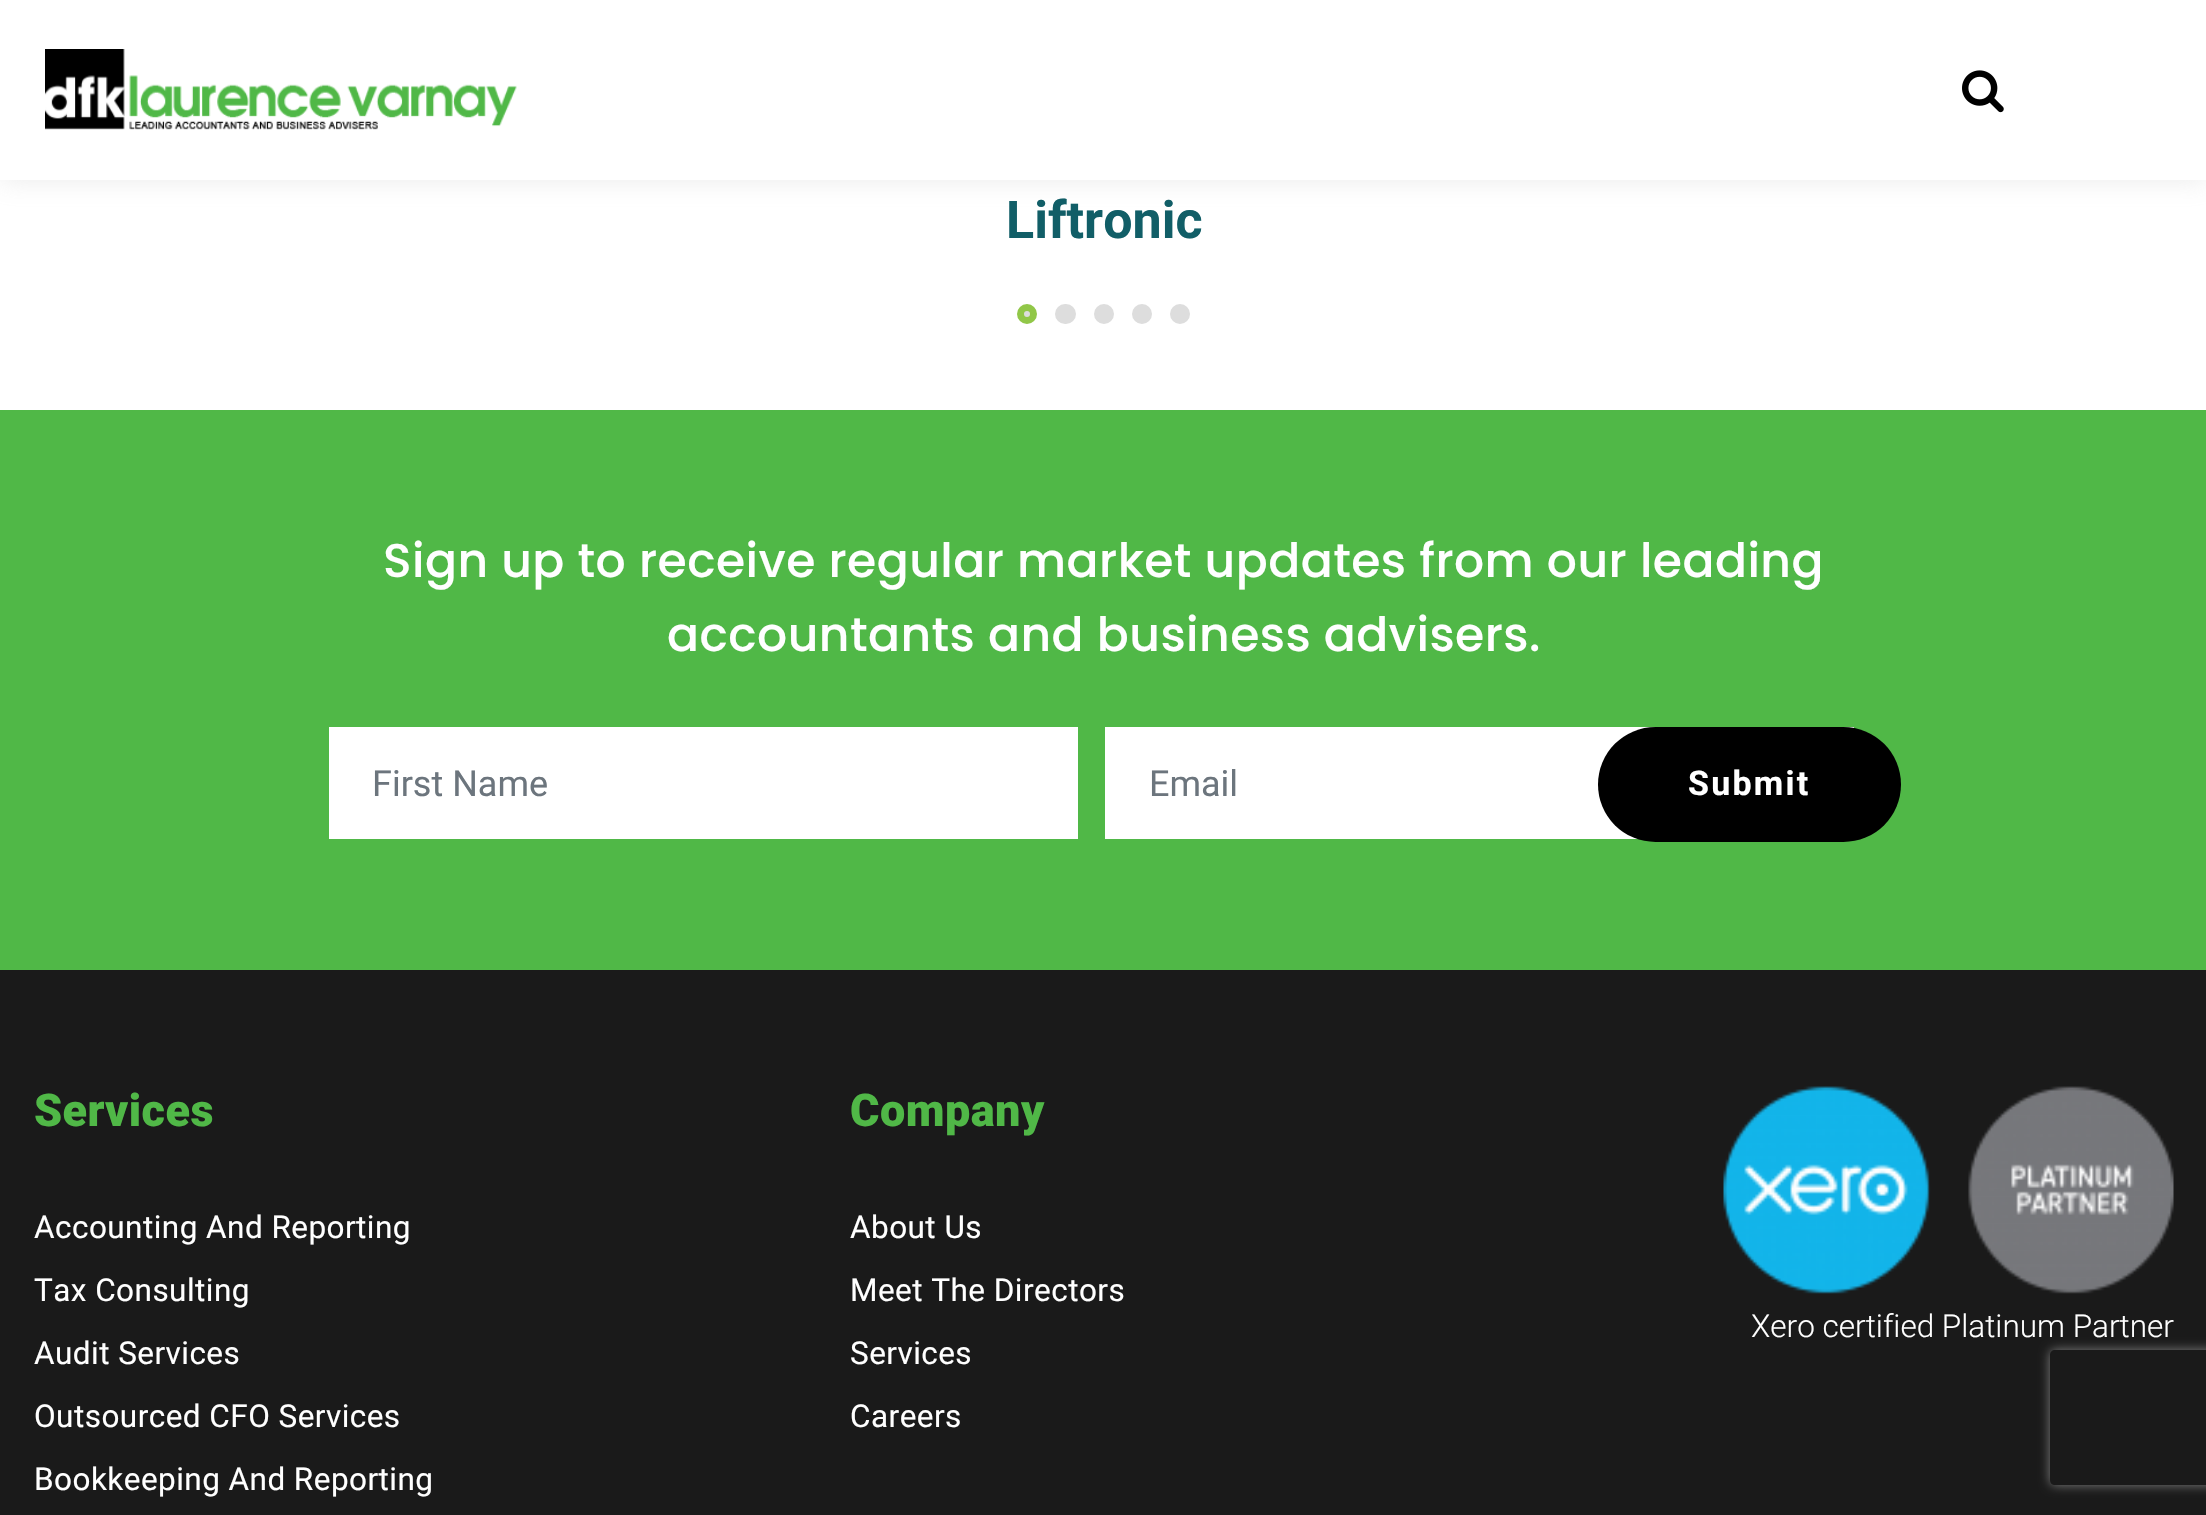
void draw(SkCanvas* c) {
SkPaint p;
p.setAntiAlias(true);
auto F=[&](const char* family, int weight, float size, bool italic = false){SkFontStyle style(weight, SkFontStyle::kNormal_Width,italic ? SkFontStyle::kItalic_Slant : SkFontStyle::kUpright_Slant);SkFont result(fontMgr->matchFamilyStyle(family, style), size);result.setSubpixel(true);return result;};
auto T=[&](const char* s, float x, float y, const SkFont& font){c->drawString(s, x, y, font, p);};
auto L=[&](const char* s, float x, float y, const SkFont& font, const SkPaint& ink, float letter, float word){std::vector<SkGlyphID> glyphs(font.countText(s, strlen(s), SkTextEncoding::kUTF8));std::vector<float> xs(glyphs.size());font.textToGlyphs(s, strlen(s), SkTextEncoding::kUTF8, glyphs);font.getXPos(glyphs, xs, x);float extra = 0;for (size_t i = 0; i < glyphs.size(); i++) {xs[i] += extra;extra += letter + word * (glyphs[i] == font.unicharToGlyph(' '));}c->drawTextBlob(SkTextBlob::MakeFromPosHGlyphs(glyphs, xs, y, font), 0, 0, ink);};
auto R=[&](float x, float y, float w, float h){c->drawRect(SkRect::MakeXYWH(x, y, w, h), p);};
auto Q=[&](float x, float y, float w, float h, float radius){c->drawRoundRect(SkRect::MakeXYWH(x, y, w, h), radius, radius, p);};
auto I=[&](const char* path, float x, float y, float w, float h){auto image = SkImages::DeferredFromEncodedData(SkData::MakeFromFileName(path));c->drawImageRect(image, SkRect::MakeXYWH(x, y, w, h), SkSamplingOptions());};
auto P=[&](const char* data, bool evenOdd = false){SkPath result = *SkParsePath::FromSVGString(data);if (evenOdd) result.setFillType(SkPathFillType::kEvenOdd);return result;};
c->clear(0xffffffff);
p.setColor(0x4dbbbbbb);
p.setMaskFilter(SkMaskFilter::MakeBlur(kNormal_SkBlurStyle, 12.5));
c->drawRect(SkRect::MakeXYWH(0,0,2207,180),p);
p.setMaskFilter(nullptr);
p.setColor(0xffffffff);
R(0,0,2206,180);
I("1.png",45,49,472,81);
I("2.png",1962,70,42,43);
auto f1 = F("Roboto",700,52);
p.setColor(0xff115e67);
T("Liftronic",1006,238,f1);
p.setColor(0xffdddddd);
c->drawCircle(1027,314,6.5,p);
p.setStroke(true);
p.setStrokeWidth(7);
p.setColor(0xff91c748);
c->drawCircle(1027,314,6.5,p);
p.setStroke(false);
p.setColor(0xffdddddd);
c->drawRoundRect(SkRect::MakeXYWH(1058.5,307.5,14,13),6.5,6.5,p);
p.setStroke(true);
c->drawRoundRect(SkRect::MakeXYWH(1058.5,307.5,14,13),6.5,6.5,p);
p.setStroke(false);
c->drawCircle(1104,314,6.5,p);
p.setStroke(true);
c->drawCircle(1104,314,6.5,p);
p.setStroke(false);
c->drawCircle(1142,314,6.5,p);
p.setStroke(true);
c->drawCircle(1142,314,6.5,p);
p.setStroke(false);
c->drawCircle(1180,314,6.5,p);
p.setStroke(true);
c->drawCircle(1180,314,6.5,p);
p.setStroke(false);
p.setColor(0xff50b847);
R(0,410,2206,560);
auto f2 = F("Poppins",500,47.25);
p.setColor(0xffffffff);
L("Sign up to receive regular market updates from our leading",383,577,f2,p,.45,0);
L("accountants and business advisers.",667,651,f2,p,.45,0);
R(329,727,749,112);
auto f3 = F("Roboto",400,36);
p.setColor(0xff6c757d);
T("First Name",372,796,f3);
p.setColor(0xffffffff);
R(1105,727,749,112);
p.setColor(0xff6c757d);
T("Email",1149,796,f3);
p.setColor(0xff000000);
Q(1598,727,303,115,57.5);
auto f4 = F("Roboto",700,34);
p.setColor(0xffffffff);
L("Submit",1688,795,f4,p,2.25,0);
p.setColor(0xff1a1a1a);
R(0,970,2206,545);
auto f5 = F("Roboto",900,45);
p.setColor(0xff50b847);
L("Services",34,1126,f5,p,.45,0);
auto f6 = F("Roboto",400,31.5);
p.setColor(0xffffffff);
L("Accounting And Reporting",34,1238,f6,p,.45,0);
L("Tax Consulting",34,1301,f6,p,.45,0);
L("Audit Services",34,1364,f6,p,.45,0);
L("Outsourced CFO Services",34,1427,f6,p,.45,0);
L("Bookkeeping And Reporting",34,1490,f6,p,.45,0);
p.setColor(0xff50b847);
L("Company",850,1126,f5,p,.45,0);
p.setColor(0xffffffff);
L("About Us",850,1238,f6,p,.45,0);
L("Meet The Directors",850,1301,f6,p,.45,0);
L("Services",850,1364,f6,p,.45,0);
L("Careers",850,1427,f6,p,.45,0);
I("3.png",1723,1086,451,208);
auto f7 = F("Roboto",300,31.5);
T("Xero certified Platinum Partner",1751,1337,f7);
c->save();
c->clipPath(P("M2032 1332h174v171h-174zm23 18h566c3 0 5 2 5 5v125c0 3-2 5-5 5h-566c-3 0-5-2-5-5v-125c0-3 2-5 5-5z",true),true);
p.setColor(0xff808080);
p.setMaskFilter(SkMaskFilter::MakeBlur(kNormal_SkBlurStyle, 5.5));
c->drawRoundRect(SkRect::MakeXYWH(2050,1350,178,135),5,5,p);
p.setMaskFilter(nullptr);
c->restore();
}
